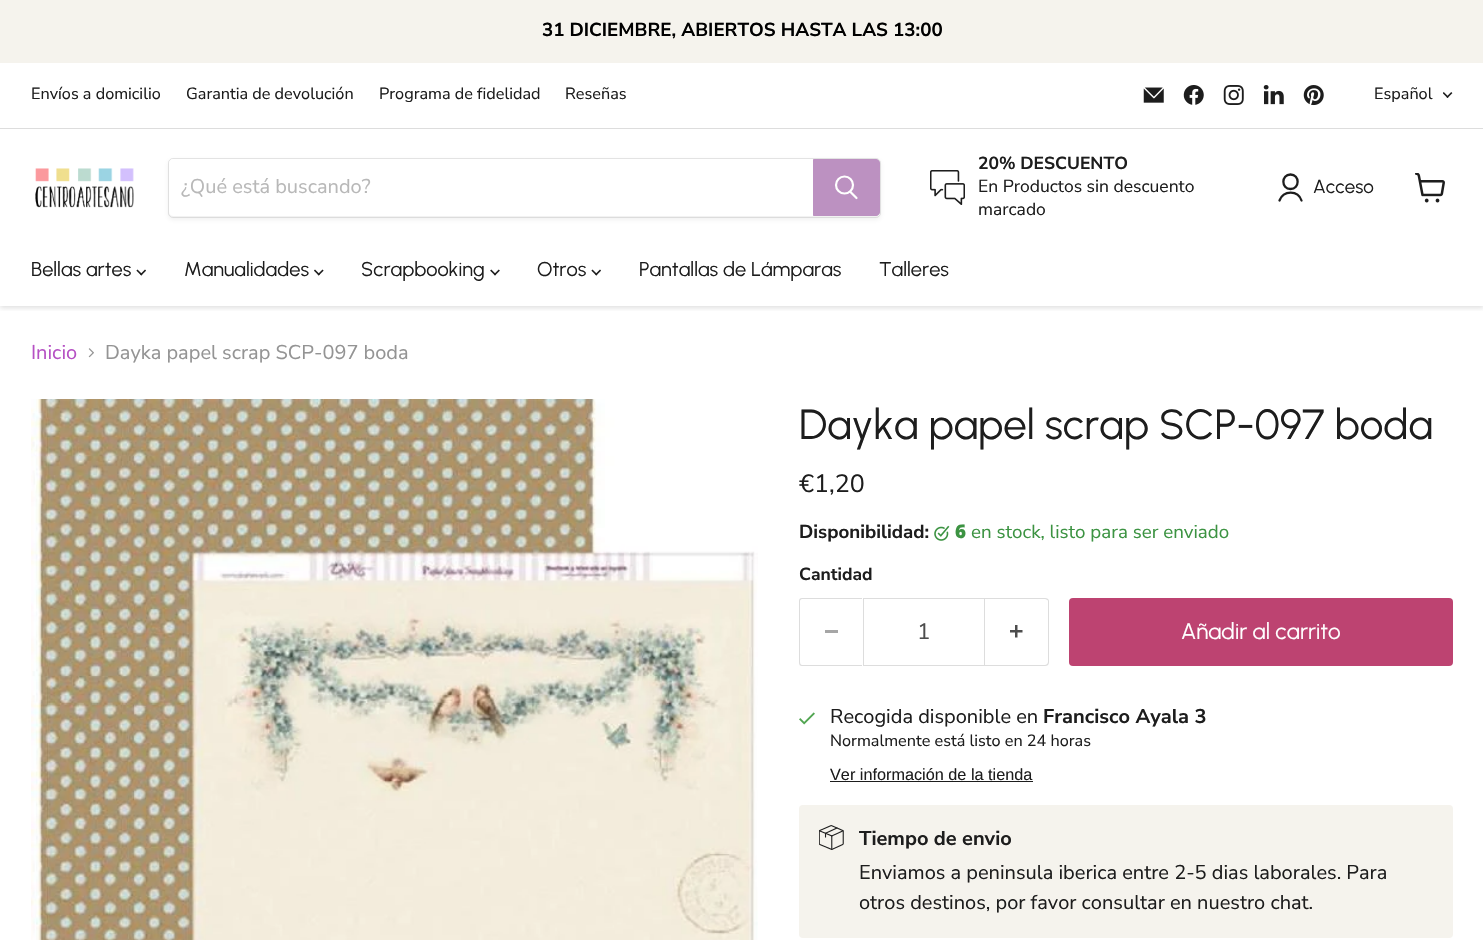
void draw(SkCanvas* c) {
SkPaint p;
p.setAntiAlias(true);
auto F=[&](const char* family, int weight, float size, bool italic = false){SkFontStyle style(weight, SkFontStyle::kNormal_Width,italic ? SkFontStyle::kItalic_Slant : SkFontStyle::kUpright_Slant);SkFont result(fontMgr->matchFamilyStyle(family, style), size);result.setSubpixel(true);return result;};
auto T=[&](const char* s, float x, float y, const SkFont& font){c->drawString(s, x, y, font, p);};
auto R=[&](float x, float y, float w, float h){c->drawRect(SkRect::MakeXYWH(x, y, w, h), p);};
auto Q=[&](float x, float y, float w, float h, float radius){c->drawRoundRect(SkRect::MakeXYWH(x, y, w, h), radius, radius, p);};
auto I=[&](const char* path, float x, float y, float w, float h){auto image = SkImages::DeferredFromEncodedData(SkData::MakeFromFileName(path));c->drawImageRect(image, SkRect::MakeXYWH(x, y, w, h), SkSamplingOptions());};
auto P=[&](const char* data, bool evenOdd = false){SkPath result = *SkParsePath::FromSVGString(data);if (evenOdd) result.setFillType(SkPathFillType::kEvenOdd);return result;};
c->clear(0xffffffff);
p.setColor(0xfff5f3ed);
R(0,0,1483,63);
auto f1 = F("Nunito Sans",700,18.75);
p.setColor(0xff000000);
T("31 DICIEMBRE, ABIERTOS HASTA LAS 13:00",542,36,f1);
c->save();
c->clipRect(SkRect::MakeXYWH(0,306,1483,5));
p.setColor(0x40808080);
p.setMaskFilter(SkMaskFilter::MakeBlur(kNormal_SkBlurStyle, 2.5));
c->drawRect(SkRect::MakeXYWH(0,130,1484,178),p);
p.setMaskFilter(nullptr);
c->restore();
p.setColor(0xffffffff);
R(0,127,1483,1);
p.setColor(0xffdddddd);
R(0,128,1483,1);
auto f2 = F("Nunito Sans",400,16.25);
p.setColor(0xff1d1d1d);
T("Envíos a domicilio",31,99,f2);
T("Garantia de devolución",186,99,f2);
T("Programa de fidelidad",379,99,f2);
T("Reseñas",565,99,f2);
I("1.png",1143,87,21,16);
I("2.png",1183,85,21,20);
I("3.png",1223,85,21,20);
I("4.png",1263,85,21,20);
I("5.png",1303,85,21,21);
T("Español",1374,99,f2);
I("6.png",1443,92,10,6);
I("7.png",35,168,99,40);
p.setColor(0x1c808080);
p.setMaskFilter(SkMaskFilter::MakeBlur(kNormal_SkBlurStyle, 2));
c->drawRoundRect(SkRect::MakeXYWH(168,160,713,60),5,5,p);
p.setMaskFilter(nullptr);
p.setStroke(true);
p.setStrokeWidth(1);
p.setColor(0x33808080);
c->drawRoundRect(SkRect::MakeXYWH(168.5,158.5,712,59),4.5,4.5,p);
p.setStroke(false);
p.setColor(0xffffffff);
c->drawPath(P("M173 159h640v57h-640c-2 0-4-2-4-4v-49c0-2 2-4 4-4z"),p);
auto f3 = F("Nunito Sans",400,20);
p.setColor(0xffb8b8b8);
T("¿Qué está buscando?",181,193,f3);
p.setColor(0xffbc91c1);
c->drawPath(P("M813.5 159.5h62.5c2 0 3.5 1.5 3.5 3.5v49c0 2-1.5 3.5-3.5 3.5h-62.5z"),p);
p.setStroke(true);
c->drawPath(P("M813.5 159.5h62.5c2 0 3.5 1.5 3.5 3.5v49c0 2-1.5 3.5-3.5 3.5h-62.5z"),p);
p.setStrokeWidth(2.2);
p.setStrokeCap(SkPaint::kRound_Cap);
p.setColor(0xffffffff);
c->drawPath(P("M856.5 198l-6-6"),p);
p.setStrokeCap(SkPaint::kButt_Cap);
c->drawCircle(844.5,185,8.5,p);
I("8.png",930,170,35,35);
auto f4 = F("Nunito Sans",700,17.5);
p.setStroke(false);
p.setColor(0xff1d1d1d);
T("20% DESCUENTO",978,169,f4);
auto f5 = F("Nunito Sans",400,17.5);
T("En Productos sin descuento",978,192,f5);
T("marcado",978,215,f5);
p.setStroke(true);
p.setStrokeWidth(2.3);
p.setStrokeCap(SkPaint::kRound_Cap);
p.setStrokeJoin(SkPaint::kRound_Join);
c->drawPath(P("M1290.5 189c9.5 0 9.5-14.5 0-14.5c-9.5 0-9.5 14.5 0 14.5zm11 11.5c-3.5-10.5-18-10.5-22 0"),p);
auto f6 = F("Urbanist",400,18.75);
p.setStroke(false);
T("Acceso",1313,193,f6);
I("9.png",1415,173,30,30);
auto f7 = F("Urbanist",400,20);
T("Bellas artes",31,276,f7);
I("10.png",136,269,10,7);
T("Manualidades",184,276,f7);
I("11.png",314,269,10,7);
T("Scrapbooking",361,276,f7);
I("12.png",490,269,10,7);
T("Otros",537,276,f7);
I("10.png",591,269,10,7);
T("Pantallas de Lámparas",639,276,f7);
T("Talleres",879,276,f7);
p.setColor(0xffb651c4);
T("Inicio",31,359,f3);
I("13.png",88,348,6,10);
p.setColor(0xff949494);
T("Dayka papel scrap SCP-097 boda",105,359,f3);
I("14.png",31,399,727,541);
auto f8 = F("Urbanist",400,42);
p.setColor(0xff1d1d1d);
T("Dayka papel scrap SCP-097 boda",799,439,f8);
auto f9 = F("Nunito Sans",400,25);
T("€1,20",799,492,f9);
T("Disponibilidad:",799,538,f1);
I("15.png",934,525,16,16);
auto f10 = F("Noto Sans",900,18.75);
p.setColor(0xff3c9342);
T("6",955,538,f10);
auto f11 = F("Nunito Sans",400,18.75);
T("en stock, listo para ser enviado",971,538,f11);
p.setColor(0xff1d1d1d);
T("Cantidad",799,580,f4);
p.setColor(0xffdddddd);
c->drawPath(P("M802 598h60v68h-60c-2 0-3-1-3-4v-61c0-2 1-3 3-3zm0 1h60v66h-60c-1 0-2-1-2-3v-61c0-1 1-2 2-2z",true),p);
p.setColor(0xffa6a6a6);
R(825,630,13,3);
p.setStroke(true);
p.setStrokeWidth(1);
p.setStrokeCap(SkPaint::kButt_Cap);
p.setStrokeJoin(SkPaint::kMiter_Join);
p.setColor(0xffdddddd);
c->drawRect(SkRect::MakeXYWH(863.5,598.5,121,67),p);
auto f12 = F("Nunito Sans",400,22.5);
p.setStroke(false);
p.setColor(0xff4d4d4d);
T("1",917,639,f12);
p.setColor(0xffdddddd);
c->drawPath(P("M985 598h60c2 0 4 1 4 3v61c0 3-2 4-4 4h-60zm0 1h60c1 0 3 1 3 2v61c0 2-2 3-3 3h-60z",true),p);
I("16.png",1010,625,13,13);
p.setColor(0xffbd4371);
Q(1069,598,384,68,4);
auto f13 = F("Urbanist",400,22.5);
p.setColor(0xffffffff);
T("Añadir al carrito",1181,639,f13);
I("17.png",799,712,16,13);
p.setColor(0xff1d1d1d);
T("Recogida disponible en",830,723,f3);
auto f14 = F("Nunito Sans",700,20);
T("Francisco Ayala 3",1043,723,f14);
T("Normalmente está listo en 24 horas",830,746,f2);
auto f15 = F("Liberation Sans",400,16.25);
T("Ver información de la tienda",830,780,f15);
R(830,781,203,1);
p.setColor(0xfff5f3ed);
Q(799,805,654,133,4);
I("18.png",819,825,25,25);
p.setColor(0xff1d1d1d);
T("Tiempo de envio",859,845,f14);
T("Enviamos a peninsula iberica entre 2-5 dias laborales. Para",859,879,f3);
T("otros destinos, por favor consultar en nuestro chat.",859,909,f3);
}
